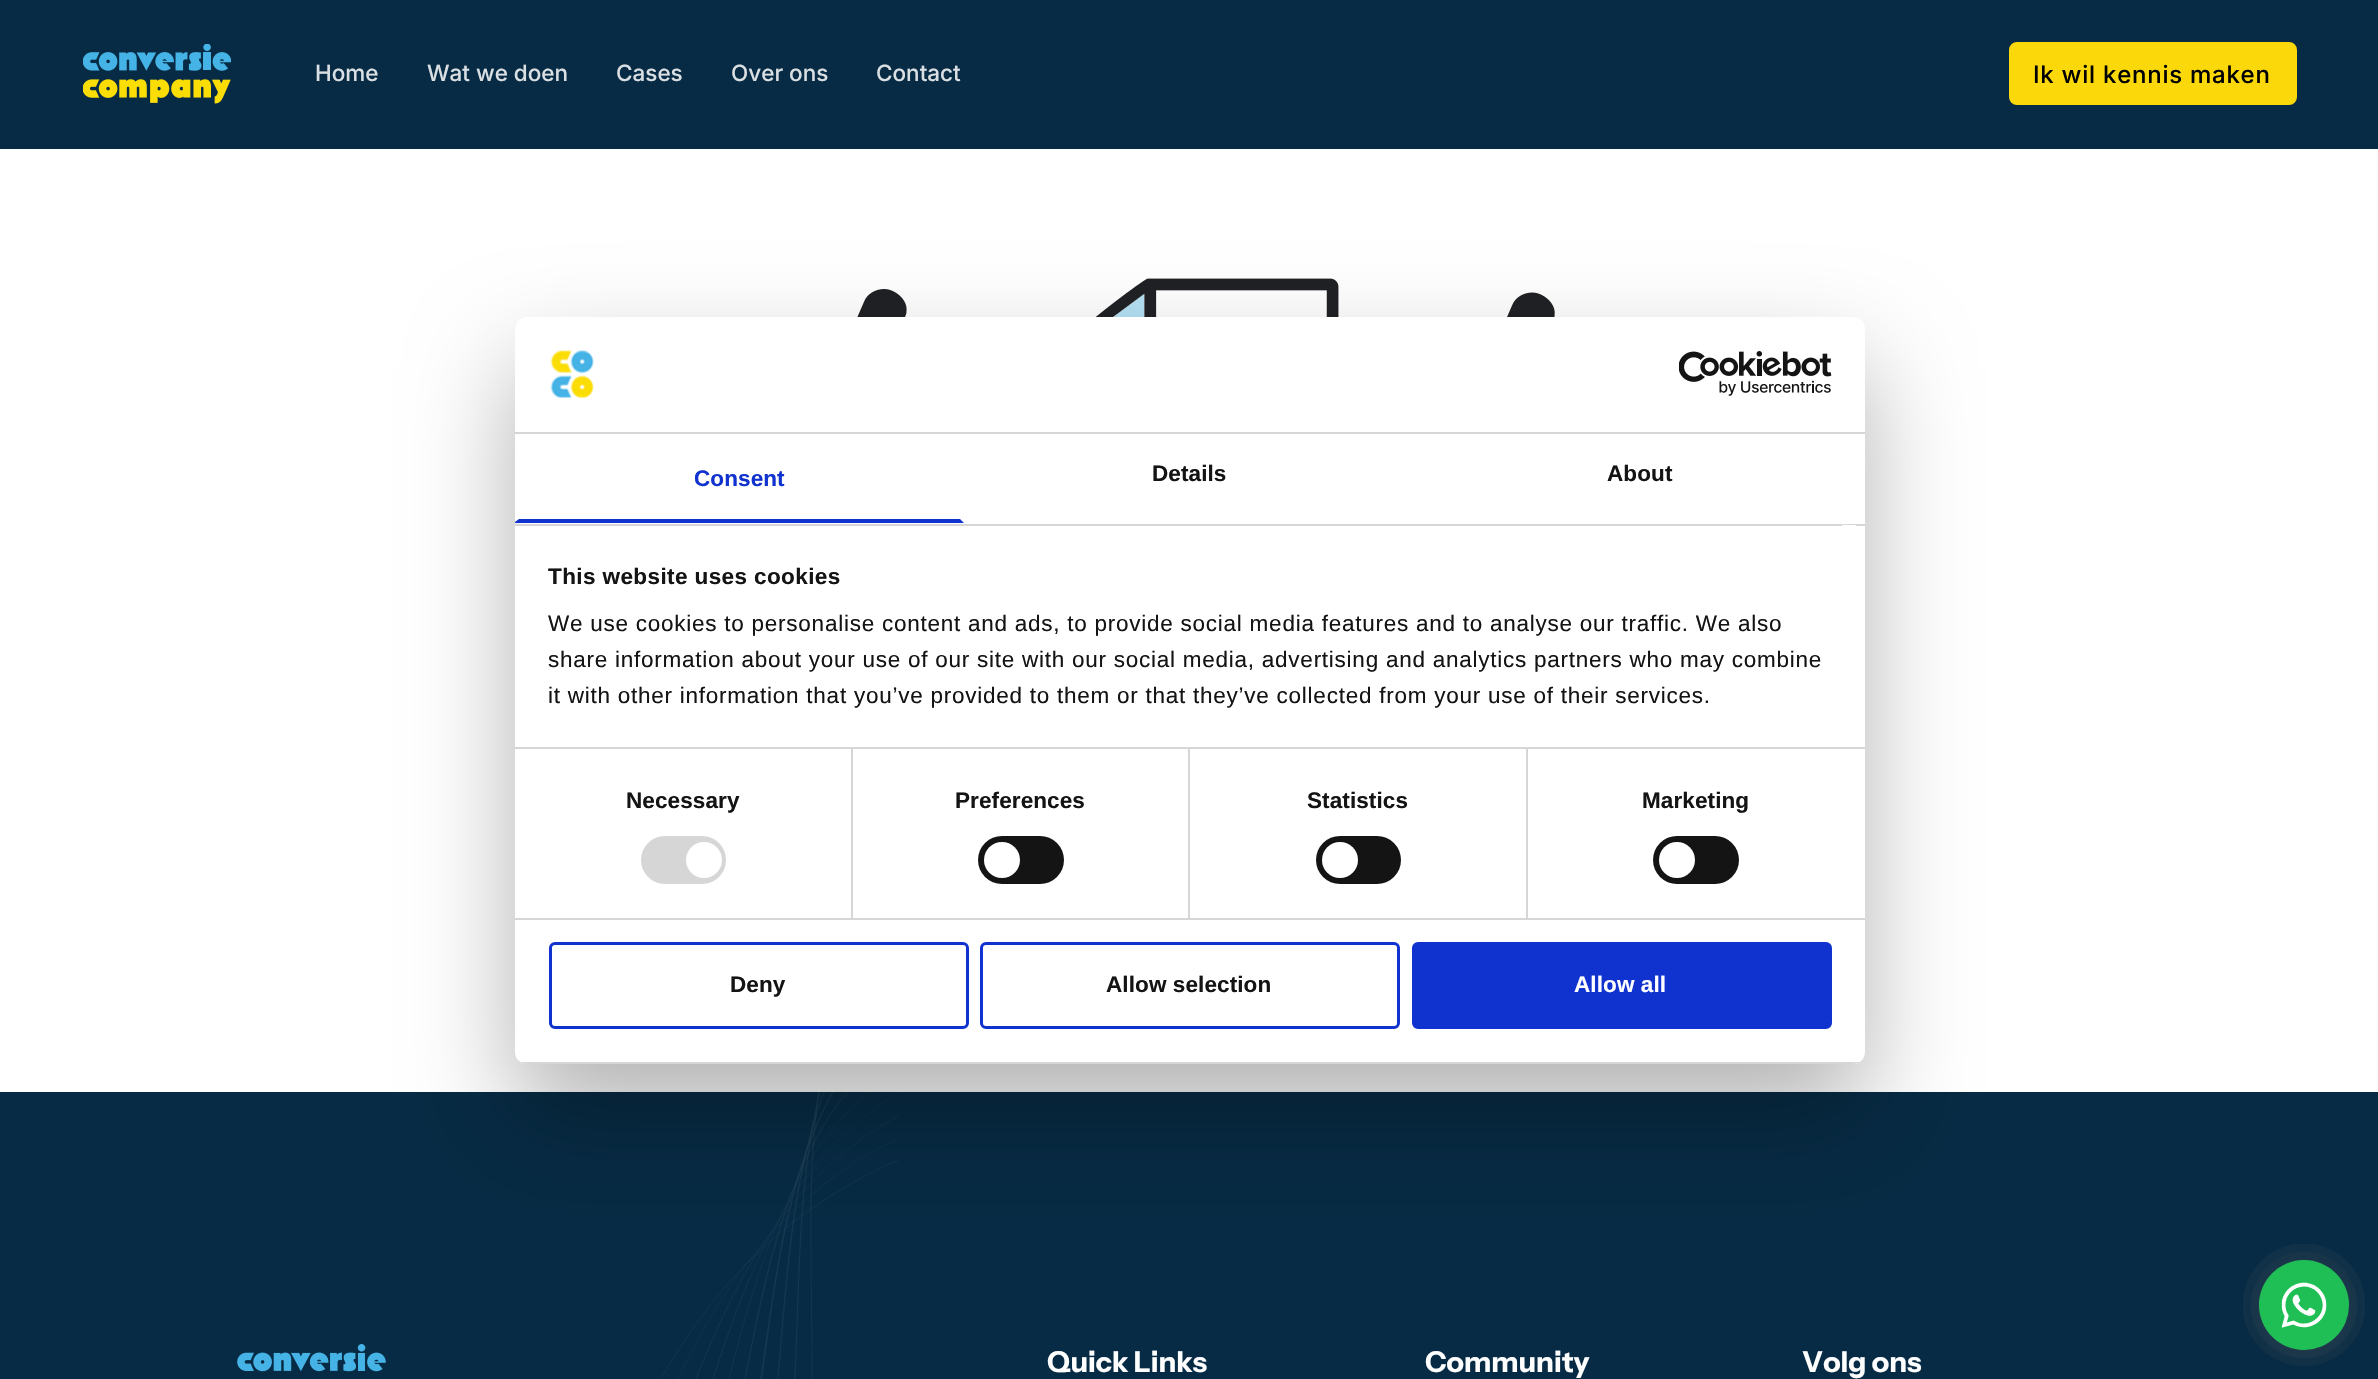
void draw(SkCanvas* c) {
SkPaint p;
p.setAntiAlias(true);
auto F=[&](const char* family, int weight, float size, bool italic = false){SkFontStyle style(weight, SkFontStyle::kNormal_Width,italic ? SkFontStyle::kItalic_Slant : SkFontStyle::kUpright_Slant);SkFont result(fontMgr->matchFamilyStyle(family, style), size);result.setSubpixel(true);return result;};
auto T=[&](const char* s, float x, float y, const SkFont& font){c->drawString(s, x, y, font, p);};
auto L=[&](const char* s, float x, float y, const SkFont& font, const SkPaint& ink, float letter, float word){std::vector<SkGlyphID> glyphs(font.countText(s, strlen(s), SkTextEncoding::kUTF8));std::vector<float> xs(glyphs.size());font.textToGlyphs(s, strlen(s), SkTextEncoding::kUTF8, glyphs);font.getXPos(glyphs, xs, x);float extra = 0;for (size_t i = 0; i < glyphs.size(); i++) {xs[i] += extra;extra += letter + word * (glyphs[i] == font.unicharToGlyph(' '));}c->drawTextBlob(SkTextBlob::MakeFromPosHGlyphs(glyphs, xs, y, font), 0, 0, ink);};
auto R=[&](float x, float y, float w, float h){c->drawRect(SkRect::MakeXYWH(x, y, w, h), p);};
auto Q=[&](float x, float y, float w, float h, float radius){c->drawRoundRect(SkRect::MakeXYWH(x, y, w, h), radius, radius, p);};
auto I=[&](const char* path, float x, float y, float w, float h){auto image = SkImages::DeferredFromEncodedData(SkData::MakeFromFileName(path));c->drawImageRect(image, SkRect::MakeXYWH(x, y, w, h), SkSamplingOptions());};
auto P=[&](const char* data, bool evenOdd = false){SkPath result = *SkParsePath::FromSVGString(data);if (evenOdd) result.setFillType(SkPathFillType::kEvenOdd);return result;};
c->clear(0xffffffff);
p.setColor(0xff072b44);
R(0,0,2378,149);
I("1.png",83,44,148,60);
auto f1 = F("Inter",500,22.5);
p.setColor(0xffdadfe3);
T("Home",315,81,f1);
T("Wat we doen",427,81,f1);
T("Cases",616,81,f1);
T("Over ons",731,81,f1);
T("Contact",876,81,f1);
p.setColor(0xfffbd80a);
c->drawRoundRect(SkRect::MakeXYWH(2010,43,286,61),7,7,p);
p.setStroke(true);
p.setStrokeWidth(2);
c->drawRoundRect(SkRect::MakeXYWH(2010,43,286,61),7,7,p);
auto f2 = F("Inter",500,24);
p.setStroke(false);
p.setColor(0xff000000);
L("Ik wil kennis maken",2033,83,f2,p,.75,0);
I("2.png",857,278,698,39);
p.setColor(0xff072b44);
R(0,1092,2378,287);
I("5.png",661,1092,238,287);
p.setColor(0x4d000000);
p.setMaskFilter(SkMaskFilter::MakeBlur(kNormal_SkBlurStyle, 51));
c->drawRoundRect(SkRect::MakeXYWH(515,365,1350,747),12,12,p);
p.setMaskFilter(nullptr);
p.setColor(0xffffffff);
Q(515,317,1350,747,12);
p.setColor(0xffd6d6d6);
R(515,432,1350,2);
I("3.png",550,350,44,48);
I("4.png",1679,351,153,45);
R(515,524,1350,2);
p.setColor(0xff1032cf);
c->drawPath(P("M964 523h-449v-1l4-3h441z"),p);
auto f3 = F("Liberation Sans",700,22.5);
L("Consent",694,486,f3,p,.1,0);
p.setColor(0xff141414);
L("Details",1152,481,f3,p,.1,0);
L("About",1607,481,f3,p,.1,0);
p.setColor(0xffd6d6d6);
R(515,747,1350,2);
p.setColor(0xffffffff);
R(1842,525,14,1);
p.setColor(0xff141414);
L("This website uses cookies",548,584,f3,p,.4,0);
auto f4 = F("Liberation Sans",400,22.5);
L("We use cookies to personalise content and ads, to provide social media features and to analyse our traffic. We also",548,631,f4,p,.75,0);
L("share information about your use of our site with our social media, advertising and analytics partners who may combine",548,667,f4,p,.75,0);
L("it with other information that you’ve provided to them or that they’ve collected from your use of their services.",548,703,f4,p,.75,0);
p.setColor(0xffd6d6d6);
R(515,918,1350,2);
R(851,749,2,169);
p.setColor(0xff141414);
L("Necessary",626,808,f3,p,.1,0);
p.setColor(0xffd6d6d6);
Q(641,836,85,48,24);
p.setColor(0xffffffff);
c->drawCircle(704,860,18,p);
p.setColor(0xffd6d6d6);
R(1188,749,2,169);
p.setColor(0xff141414);
L("Preferences",955,808,f3,p,.1,0);
Q(978,836,86,48,24);
p.setColor(0xffffffff);
c->drawCircle(1002,860,18,p);
p.setColor(0xffd6d6d6);
R(1526,749,2,169);
p.setColor(0xff141414);
L("Statistics",1307,808,f3,p,.1,0);
Q(1316,836,85,48,24);
p.setColor(0xffffffff);
c->drawCircle(1340,860,18,p);
p.setColor(0xff141414);
L("Marketing",1642,808,f3,p,.1,0);
Q(1653,836,86,48,24);
p.setColor(0xffffffff);
c->drawCircle(1677,860,18,p);
c->save();
c->clipPath(P("M527 317h1326c6.5 0 12 5.5 12 12v723c0 6.5-5.5 12-12 12h-1326c-6.5 0-12-5.5-12-12v-723c0-6.5 5.5-12 12-12z"),true);
p.setColor(0xffd6d6d6);
R(515,1062,1350,2);
c->restore();
p.setStroke(true);
p.setStrokeWidth(3);
p.setColor(0xff1032cf);
c->drawRoundRect(SkRect::MakeXYWH(550.5,943.5,417,84),4.5,4.5,p);
p.setStroke(false);
p.setColor(0xff141414);
L("Deny",730,992,f3,p,.1,0);
p.setStroke(true);
p.setColor(0xff1032cf);
c->drawRoundRect(SkRect::MakeXYWH(981.5,943.5,417,84),4.5,4.5,p);
p.setStroke(false);
p.setColor(0xff141414);
L("Allow selection",1106,992,f3,p,.1,0);
p.setColor(0xff1032cf);
c->drawRoundRect(SkRect::MakeXYWH(1413.5,943.5,417,84),4.5,4.5,p);
p.setStroke(true);
c->drawRoundRect(SkRect::MakeXYWH(1413.5,943.5,417,84),4.5,4.5,p);
p.setStroke(false);
p.setColor(0xffffffff);
L("Allow all",1574,992,f3,p,.1,0);
I("6.png",237,1344,149,28);
auto f5 = F("Instrument Sans",700,28.75);
T("Quick Links",1047,1372,f5);
T("Community",1425,1372,f5);
T("Volg ons",1802,1372,f5);
I("7.png",2243,1244,122,122);
}
